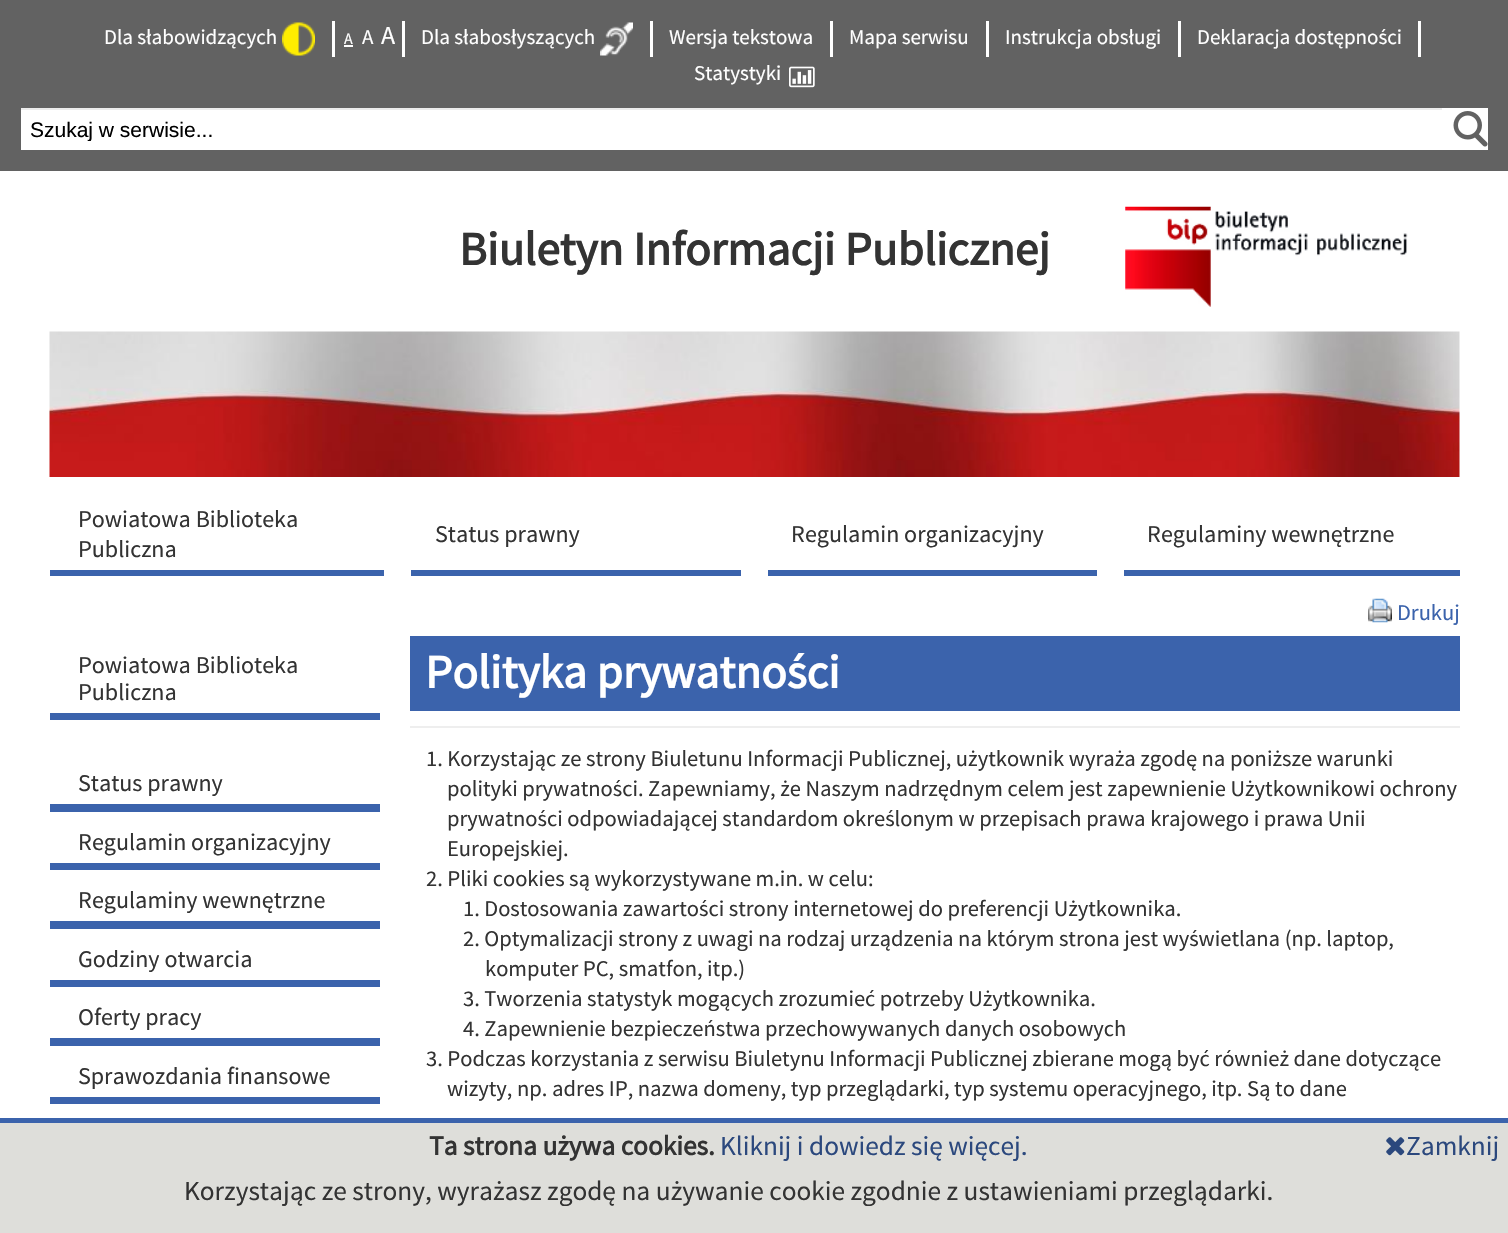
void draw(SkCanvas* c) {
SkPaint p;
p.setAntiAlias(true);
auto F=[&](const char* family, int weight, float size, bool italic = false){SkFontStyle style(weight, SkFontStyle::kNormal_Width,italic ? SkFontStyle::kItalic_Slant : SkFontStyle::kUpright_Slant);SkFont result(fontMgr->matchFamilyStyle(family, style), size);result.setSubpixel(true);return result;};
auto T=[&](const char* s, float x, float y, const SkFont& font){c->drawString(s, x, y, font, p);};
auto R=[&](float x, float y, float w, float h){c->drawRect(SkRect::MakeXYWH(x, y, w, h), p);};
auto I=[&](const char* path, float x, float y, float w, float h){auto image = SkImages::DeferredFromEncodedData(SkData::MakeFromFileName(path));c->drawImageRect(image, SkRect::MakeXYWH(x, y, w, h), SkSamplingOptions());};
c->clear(0xffffffff);
p.setColor(0xff626262);
R(0,0,1508,171);
p.setColor(0xffffffff);
R(332,21,3,36);
auto f1 = F("Source Sans Pro",400,21);
T("Dla słabowidzących",104,44,f1);
I("1.png",282,22,33,34);
R(402,21,3,36);
auto f2 = F("Source Sans Pro",400,16);
T("A",344,44,f2);
R(344,45,9,2);
T("A",362,44,f1);
auto f3 = F("Source Sans Pro",400,26);
T("A",381,44,f3);
R(650,21,3,36);
T("Dla słabosłyszących",421,44,f1);
I("2.png",600,22,33,34);
R(830,21,3,36);
T("Wersja tekstowa",669,44,f1);
R(986,21,3,36);
T("Mapa serwisu",849,44,f1);
R(1178,21,3,36);
T("Instrukcja obsługi",1005,44,f1);
R(1418,21,3,36);
T("Deklaracja dostępności",1197,44,f1);
T("Statystyki",694,80,f1);
I("3.png",789,66,26,22);
R(21,110,1421,40);
p.setColor(0xffececec);
R(21,108,1424,2);
c->save();
c->clipRect(SkRect::MakeXYWH(30,117,1313,24));
auto f4 = F("Liberation Sans",400,21);
p.setColor(0xff000000);
T("Szukaj w serwisie...",30,137,f4);
c->restore();
p.setColor(0xffffffff);
R(1442,108,46,42);
I("4.png",1453,111,35,36);
auto f5 = F("Source Sans Pro",700,47.25);
p.setColor(0xff333333);
T("Biuletyn Informacji Publicznej",459,265,f5);
I("5.png",1125,206,283,101);
I("6.png",49,331,1411,146);
auto f6 = F("Source Sans Pro",400,24);
T("Powiatowa Biblioteka",78,527,f6);
T("Publiczna",78,557,f6);
p.setColor(0xff3b63ac);
R(50,570,334,6);
p.setColor(0xff333333);
T("Status prawny",435,542,f6);
p.setColor(0xff3b63ac);
R(411,570,330,6);
p.setColor(0xff333333);
T("Regulamin organizacyjny",791,542,f6);
p.setColor(0xff3b63ac);
R(768,570,329,6);
p.setColor(0xff333333);
T("Regulaminy wewnętrzne",1147,542,f6);
p.setColor(0xff3b63ac);
R(1124,570,336,6);
R(50,713,330,7);
p.setColor(0xff333333);
T("Powiatowa Biblioteka",78,673,f6);
T("Publiczna",78,700,f6);
p.setColor(0xff3b63ac);
R(50,804,330,8);
p.setColor(0xff333333);
T("Status prawny",78,791,f6);
p.setColor(0xff3b63ac);
R(50,863,330,7);
p.setColor(0xff333333);
T("Regulamin organizacyjny",78,850,f6);
p.setColor(0xff3b63ac);
R(50,921,330,8);
p.setColor(0xff333333);
T("Regulaminy wewnętrzne",78,908,f6);
p.setColor(0xff3b63ac);
R(50,980,330,7);
p.setColor(0xff333333);
T("Godziny otwarcia",78,967,f6);
p.setColor(0xff3b63ac);
R(50,1038,330,8);
p.setColor(0xff333333);
T("Oferty pracy",78,1025,f6);
p.setColor(0xff3b63ac);
R(50,1097,330,7);
p.setColor(0xff333333);
T("Sprawozdania finansowe",78,1084,f6);
I("7.png",1368,598,24,25);
auto f7 = F("Source Sans Pro",400,22.5);
p.setColor(0xff3b63ac);
T("Drukuj",1397,620,f7);
R(410,636,1050,75);
p.setColor(0xffffffff);
T("Polityka prywatności",425,688,f5);
p.setColor(0xffeeeeee);
R(410,726,1050,2);
p.setColor(0xff333333);
T("1. Korzystając ze strony Biuletunu Informacji Publicznej, użytkownik wyraża zgodę na poniższe warunki",426,766,f7);
T("polityki prywatności. Zapewniamy, że Naszym nadrzędnym celem jest zapewnienie Użytkownikowi ochrony",447,796,f7);
T("prywatności odpowiadającej standardom określonym w przepisach prawa krajowego i prawa Unii",447,826,f7);
T("Europejskiej.",447,856,f7);
T("2. Pliki cookies są wykorzystywane m.in. w celu:",426,886,f7);
T("1. Dostosowania zawartości strony internetowej do preferencji Użytkownika.",463,916,f7);
T("2. Optymalizacji strony z uwagi na rodzaj urządzenia na którym strona jest wyświetlana (np. laptop,",463,946,f7);
T("komputer PC, smatfon, itp.)",485,976,f7);
T("3. Tworzenia statystyk mogących zrozumieć potrzeby Użytkownika.",463,1006,f7);
T("4. Zapewnienie bezpieczeństwa przechowywanych danych osobowych",463,1036,f7);
T("3. Podczas korzystania z serwisu Biuletynu Informacji Publicznej zbierane mogą być również dane dotyczące",426,1066,f7);
T("wizyty, np. adres IP, nazwa domeny, typ przeglądarki, typ systemu operacyjnego, itp. Są to dane",447,1096,f7);
p.setColor(0xffdededa);
R(0,1123,1508,110);
p.setColor(0xff3b63ac);
R(0,1118,1508,5);
auto f8 = F("Source Sans Pro",700,27.3);
p.setColor(0xff333333);
T("Ta strona używa cookies.",429,1155,f8);
auto f9 = F("Source Sans Pro",400,27.3);
p.setColor(0xff2b487d);
T("Kliknij i dowiedz się więcej.",720,1155,f9);
p.setColor(0xff333333);
T("Korzystając ze strony, wyrażasz zgodę na używanie cookie zgodnie z ustawieniami przeglądarki.",184,1200,f9);
I("8.png",1386,1137,19,19);
p.setColor(0xff2b487d);
T("Zamknij",1406,1155,f9);
}
